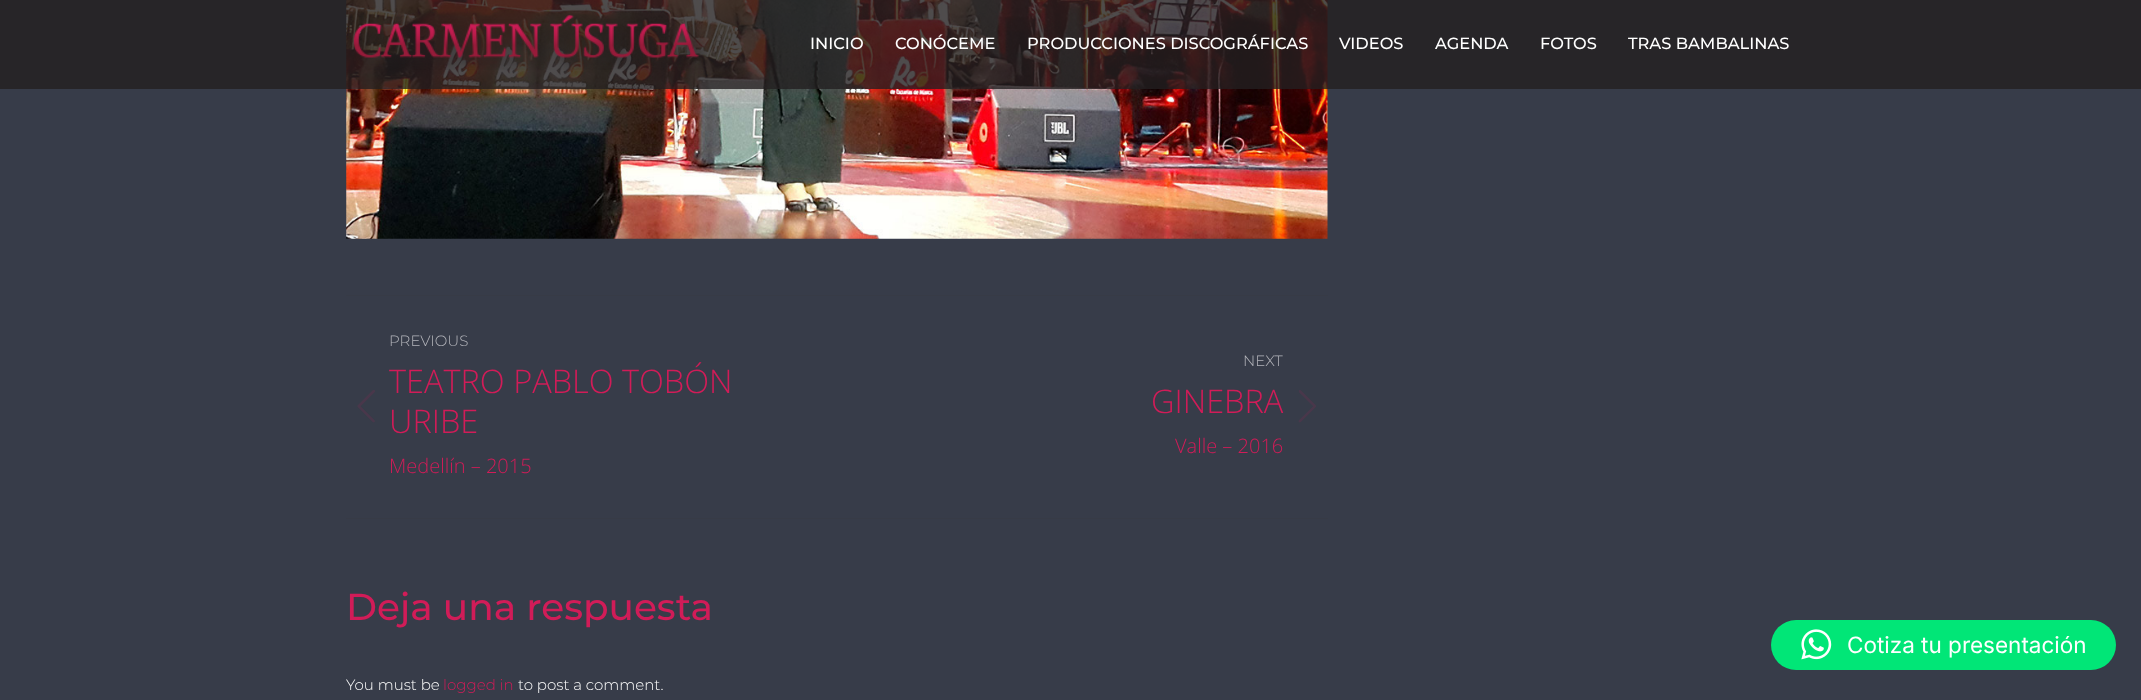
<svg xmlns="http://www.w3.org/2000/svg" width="2141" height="700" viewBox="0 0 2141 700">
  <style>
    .t1 { font: 500 16.25px Montserrat; fill: #fff; }
    .t2 { font: 300 15px Montserrat; fill: #b4b5bb; }
    .t3 { font: 300 32.5px Open Sans; fill: #d11c58; }
    .t4 { font: 300 20px Open Sans; fill: #d11c58; }
    .t5 { font: 500 37.5px Montserrat; fill: #d11c58; }
    .t6 { font: 300 15px Montserrat; fill: #fff; }
    .t7 { font: 300 15px Montserrat; fill: #d11c58; }
    .t8 { font: 22.5px Inter; fill: #fff; }
  </style>
  <rect width="100%" height="100%" fill="#373c49"/>
  <image x="346" y="0" width="982" height="239" href="images/2.png"/>
  <rect x="0" y="0" width="2141" height="89" fill="#231f20cc"/>
  <image x="353" y="14" width="354" height="56" href="images/1.png"/>
  <text x="810" y="49" class="t1">INICIO</text>
  <text x="895" y="49" class="t1">CONÓCEME</text>
  <text x="1027" y="49" class="t1">PRODUCCIONES DISCOGRÁFICAS</text>
  <text x="1339" y="49" class="t1">VIDEOS</text>
  <text x="1435" y="49" class="t1">AGENDA</text>
  <text x="1540" y="49" class="t1">FOTOS</text>
  <text x="1628" y="49" class="t1">TRAS BAMBALINAS</text>
  <rect x="346" y="295" width="982" height="1" fill="#373b46"/>
  <rect x="346" y="518" width="982" height="1" fill="#373b46"/>
  <text x="389" y="346" class="t2">PREVIOUS</text>
  <image x="357" y="390" width="18" height="33" href="images/3.png"/>
  <text x="389" y="393" class="t3">TEATRO PABLO TOBÓN</text>
  <text x="389" y="433" class="t3">URIBE</text>
  <text x="389" y="473" class="t4">Medellín – 2015</text>
  <text x="1243" y="366" class="t2">NEXT</text>
  <text x="1151" y="413" class="t3">GINEBRA</text>
  <text x="1175" y="453" class="t4">Valle – 2016</text>
  <image x="1298" y="390" width="18" height="33" href="images/4.png"/>
  <text x="346" y="620" class="t5">Deja una respuesta</text>
  <text x="346" y="690" class="t6">You must be</text>
  <text x="443" y="690" class="t7">logged in</text>
  <text x="518" y="690" class="t6">to post a comment.</text>
  <rect x="1771" y="620" width="345" height="50" rx="25" fill="#01e677"/>
  <image x="1801" y="629" width="31" height="31" href="images/5.png"/>
  <text x="1847" y="653" class="t8">Cotiza tu presentación</text>
</svg>
